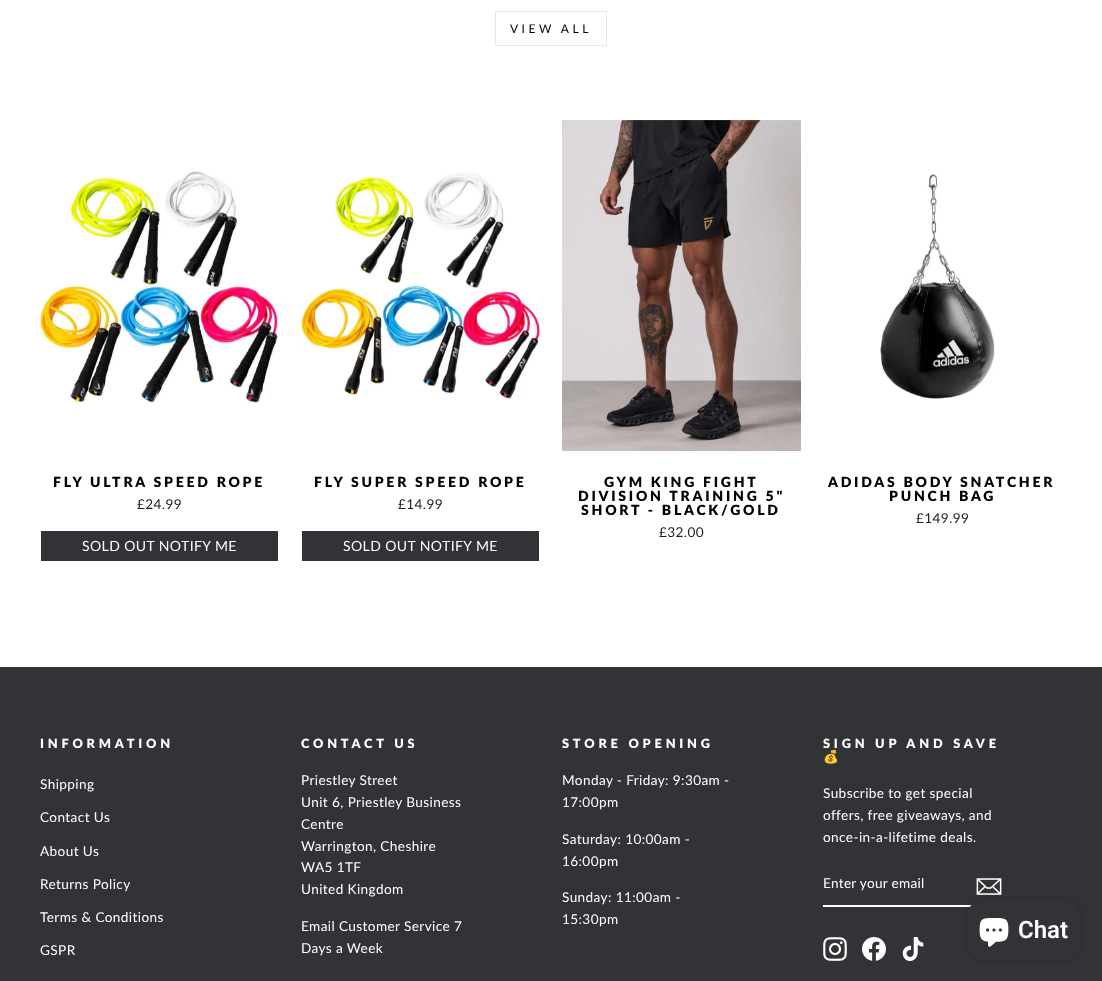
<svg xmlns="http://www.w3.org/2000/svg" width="1102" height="981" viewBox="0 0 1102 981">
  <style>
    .t1 { font: 12px Lato; letter-spacing: 3.5px; fill: #000; }
    .t2 { font: 800 14px Lato; letter-spacing: 2.75px; fill: #000; }
    .t3 { font: 13.6px Lato; letter-spacing: 0.4px; fill: #1c1d1d; }
    .t4 { font: 14px Lato; letter-spacing: 0.4px; fill: #fff; }
    .t5 { font: 800 12.75px Lato; letter-spacing: 3.8px; fill: #fff; }
    .t6 { font: 13.6px Lato; letter-spacing: 0.4px; fill: #fff; }
    .t7 { font: bold 12.75px Noto Color Emoji; letter-spacing: 3.8px; fill: #fff; }
    .t8 { font: 13.6px Lato; letter-spacing: 0.3px; fill: #fff; }
    .t9 { font: 600 24px Roboto; fill: #fff; }
  </style>
  <rect width="100%" height="100%" fill="#fff"/>
  <rect x="495.5" y="11.5" width="111" height="34" fill="none" stroke="#e8e8e1"/>
  <text x="510" y="33" class="t1">VIEW ALL</text>
  <image x="40" y="171" width="239" height="233" href="images/1.png"/>
  <text x="53" y="487" class="t2">FLY ULTRA SPEED ROPE</text>
  <text x="137" y="509" class="t3">£24.99</text>
  <rect x="41" y="531" width="237" height="30" fill="#323336"/>
  <text x="82" y="551" class="t4">SOLD OUT NOTIFY ME</text>
  <image x="301" y="172" width="239" height="228" href="images/2.png"/>
  <text x="314" y="487" class="t2">FLY SUPER SPEED ROPE</text>
  <text x="398" y="509" class="t3">£14.99</text>
  <rect x="302" y="531" width="237" height="30" fill="#323336"/>
  <text x="343" y="551" class="t4">SOLD OUT NOTIFY ME</text>
  <image x="562" y="120" width="239" height="332" href="images/3.png"/>
  <text x="604" y="487" class="t2">GYM KING FIGHT</text>
  <text x="578" y="501" class="t2">DIVISION TRAINING 5"</text>
  <text x="581" y="515" class="t2">SHORT - BLACK/GOLD</text>
  <text x="659" y="537" class="t3">£32.00</text>
  <image x="880" y="174" width="115" height="225" href="images/4.png"/>
  <text x="828" y="487" class="t2">ADIDAS BODY SNATCHER</text>
  <text x="889" y="501" class="t2">PUNCH BAG</text>
  <text x="916" y="523" class="t3">£149.99</text>
  <rect x="0" y="667" width="1102" height="314" fill="#323336"/>
  <text x="40" y="748" class="t5">INFORMATION</text>
  <text x="40" y="789" class="t6">Shipping</text>
  <text x="40" y="822" class="t6">Contact Us</text>
  <text x="40" y="856" class="t6">About Us</text>
  <text x="40" y="889" class="t6">Returns Policy</text>
  <text x="40" y="922" class="t6">Terms &amp; Conditions</text>
  <text x="40" y="955" class="t6">GSPR</text>
  <text x="301" y="748" class="t5">CONTACT US</text>
  <text x="301" y="785" class="t6">Priestley Street</text>
  <text x="301" y="807" class="t6">Unit 6, Priestley Business</text>
  <text x="301" y="829" class="t6">Centre</text>
  <text x="301" y="851" class="t6">Warrington, Cheshire</text>
  <text x="301" y="872" class="t6">WA5 1TF</text>
  <text x="301" y="894" class="t6">United Kingdom</text>
  <text x="301" y="931" class="t6">Email Customer Service 7</text>
  <text x="301" y="953" class="t6">Days a Week</text>
  <text x="562" y="748" class="t5">STORE OPENING</text>
  <text x="562" y="785" class="t6">Monday - Friday: 9:30am -</text>
  <text x="562" y="807" class="t6">17:00pm</text>
  <text x="562" y="844" class="t6">Saturday: 10:00am -</text>
  <text x="562" y="866" class="t6">16:00pm</text>
  <text x="562" y="902" class="t6">Sunday: 11:00am -</text>
  <text x="562" y="924" class="t6">15:30pm</text>
  <text x="823" y="748" class="t5">SIGN UP AND SAVE</text>
  <text x="823" y="761" class="t7">💰</text>
  <text x="823" y="798" class="t6">Subscribe to get special</text>
  <text x="823" y="820" class="t6">offers, free giveaways, and</text>
  <text x="823" y="842" class="t6">once-in-a-lifetime deals.</text>
  <rect x="823" y="905" width="149" height="2" fill="#fff"/>
  <text x="823" y="888" class="t8">Enter your email</text>
  <image x="976" y="878" width="26" height="17" href="images/5.png"/>
  <image x="823" y="937" width="24" height="24" href="images/6.png"/>
  <image x="862" y="937" width="24" height="24" href="images/7.png"/>
  <image x="902" y="937" width="22" height="24" href="images/8.png"/>
  <rect x="967" y="900" width="113" height="60" rx="16" fill="#00000026" filter="blur(2.5px)"/>
  <rect x="967" y="900" width="113" height="60" rx="16" fill="#323336"/>
  <image x="979" y="918" width="30" height="29" href="images/9.png"/>
  <text x="1018" y="938" class="t9">Chat</text>
</svg>
